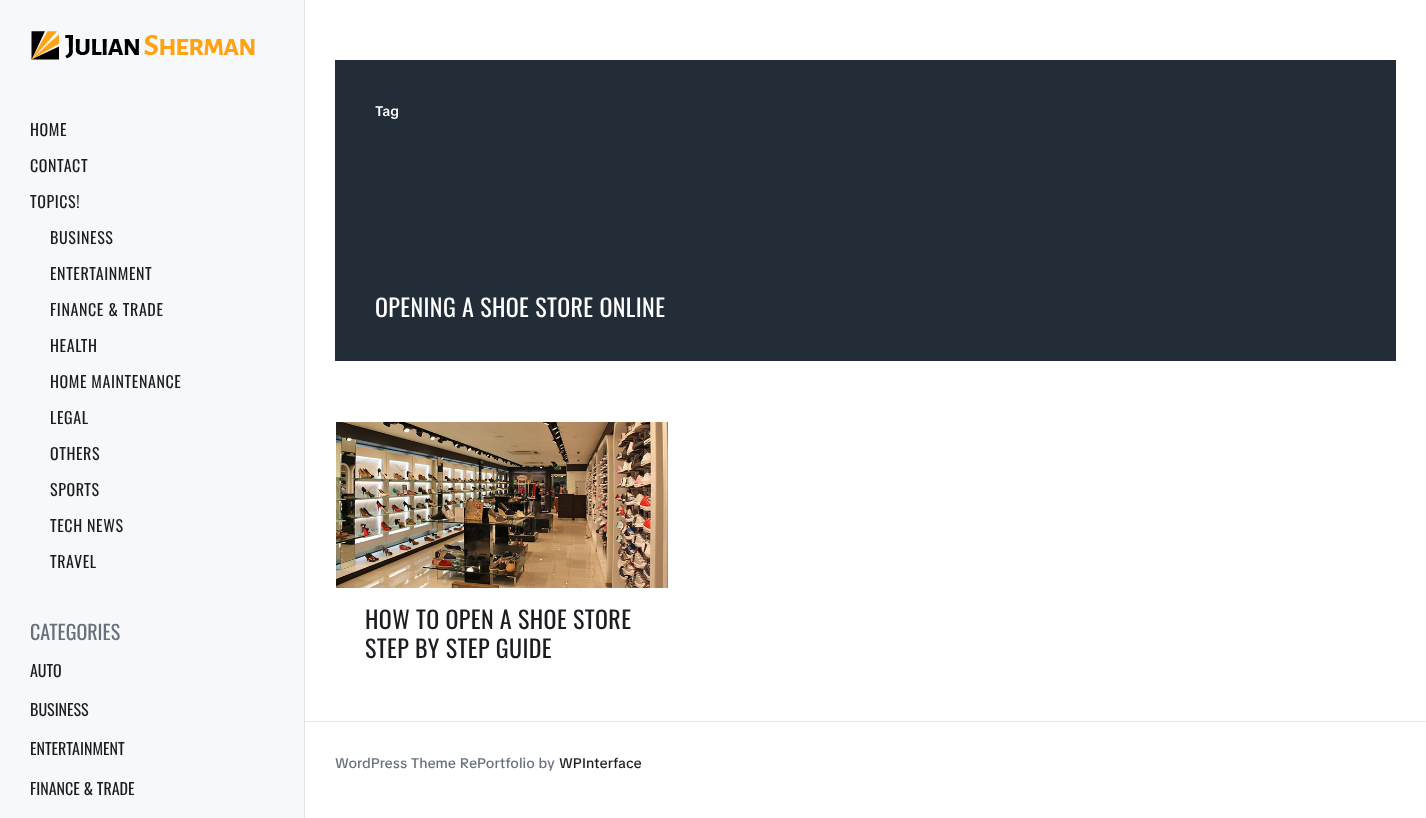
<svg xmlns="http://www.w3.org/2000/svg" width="1426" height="818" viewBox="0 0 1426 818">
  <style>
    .t1 { font: 16px Oswald; letter-spacing: 0.6px; fill: #1c1d20; }
    .t2 { font: 20px Oswald; fill: #68717b; }
    .t3 { font: 16px Oswald; fill: #1c1d20; }
    .t4 { font: 600 14px TikTok Sans; fill: #fff; }
    .t5 { font: 24px Oswald; letter-spacing: 0.4px; fill: #fff; }
    .t6 { font: 24px Oswald; letter-spacing: 0.4px; fill: #1c1d20; }
    .t7 { font: 500 14px TikTok Sans; fill: #68717b; }
    .t8 { font: 500 14px TikTok Sans; fill: #1c1d20; }
  </style>
  <rect width="100%" height="100%" fill="#fff"/>
  <rect x="0" y="0" width="304" height="818" fill="#f6f8f9"/>
  <rect x="304" y="0" width="1" height="818" fill="#e0e4e7"/>
  <image x="31" y="31" width="224" height="29" href="images/1.png"/>
  <text x="30" y="136" class="t1">HOME</text>
  <text x="30" y="172" class="t1">CONTACT</text>
  <text x="30" y="208" class="t1">TOPICS!</text>
  <text x="50" y="244" class="t1">BUSINESS</text>
  <text x="50" y="280" class="t1">ENTERTAINMENT</text>
  <text x="50" y="316" class="t1">FINANCE &amp; TRADE</text>
  <text x="50" y="352" class="t1">HEALTH</text>
  <text x="50" y="388" class="t1">HOME MAINTENANCE</text>
  <text x="50" y="424" class="t1">LEGAL</text>
  <text x="50" y="460" class="t1">OTHERS</text>
  <text x="50" y="496" class="t1">SPORTS</text>
  <text x="50" y="532" class="t1">TECH NEWS</text>
  <text x="50" y="568" class="t1">TRAVEL</text>
  <text x="30" y="640" class="t2">CATEGORIES</text>
  <text x="30" y="677" class="t3">AUTO</text>
  <text x="30" y="716" class="t3">BUSINESS</text>
  <text x="30" y="755" class="t3">ENTERTAINMENT</text>
  <text x="30" y="795" class="t3">FINANCE &amp; TRADE</text>
  <rect x="335" y="60" width="1061" height="301" fill="#232d37"/>
  <text x="375" y="116" class="t4">Tag</text>
  <text x="375" y="317" class="t5">OPENING A SHOE STORE ONLINE</text>
  <image x="336" y="422" width="332" height="166" href="images/2.png"/>
  <text x="365" y="629" class="t6">HOW TO OPEN A SHOE STORE</text>
  <text x="365" y="658" class="t6">STEP BY STEP GUIDE</text>
  <rect x="305" y="721" width="1121" height="1" fill="#e0e4e7"/>
  <text x="335" y="768" class="t7">WordPress Theme RePortfolio by</text>
  <text x="559" y="768" class="t8">WPInterface</text>
</svg>
